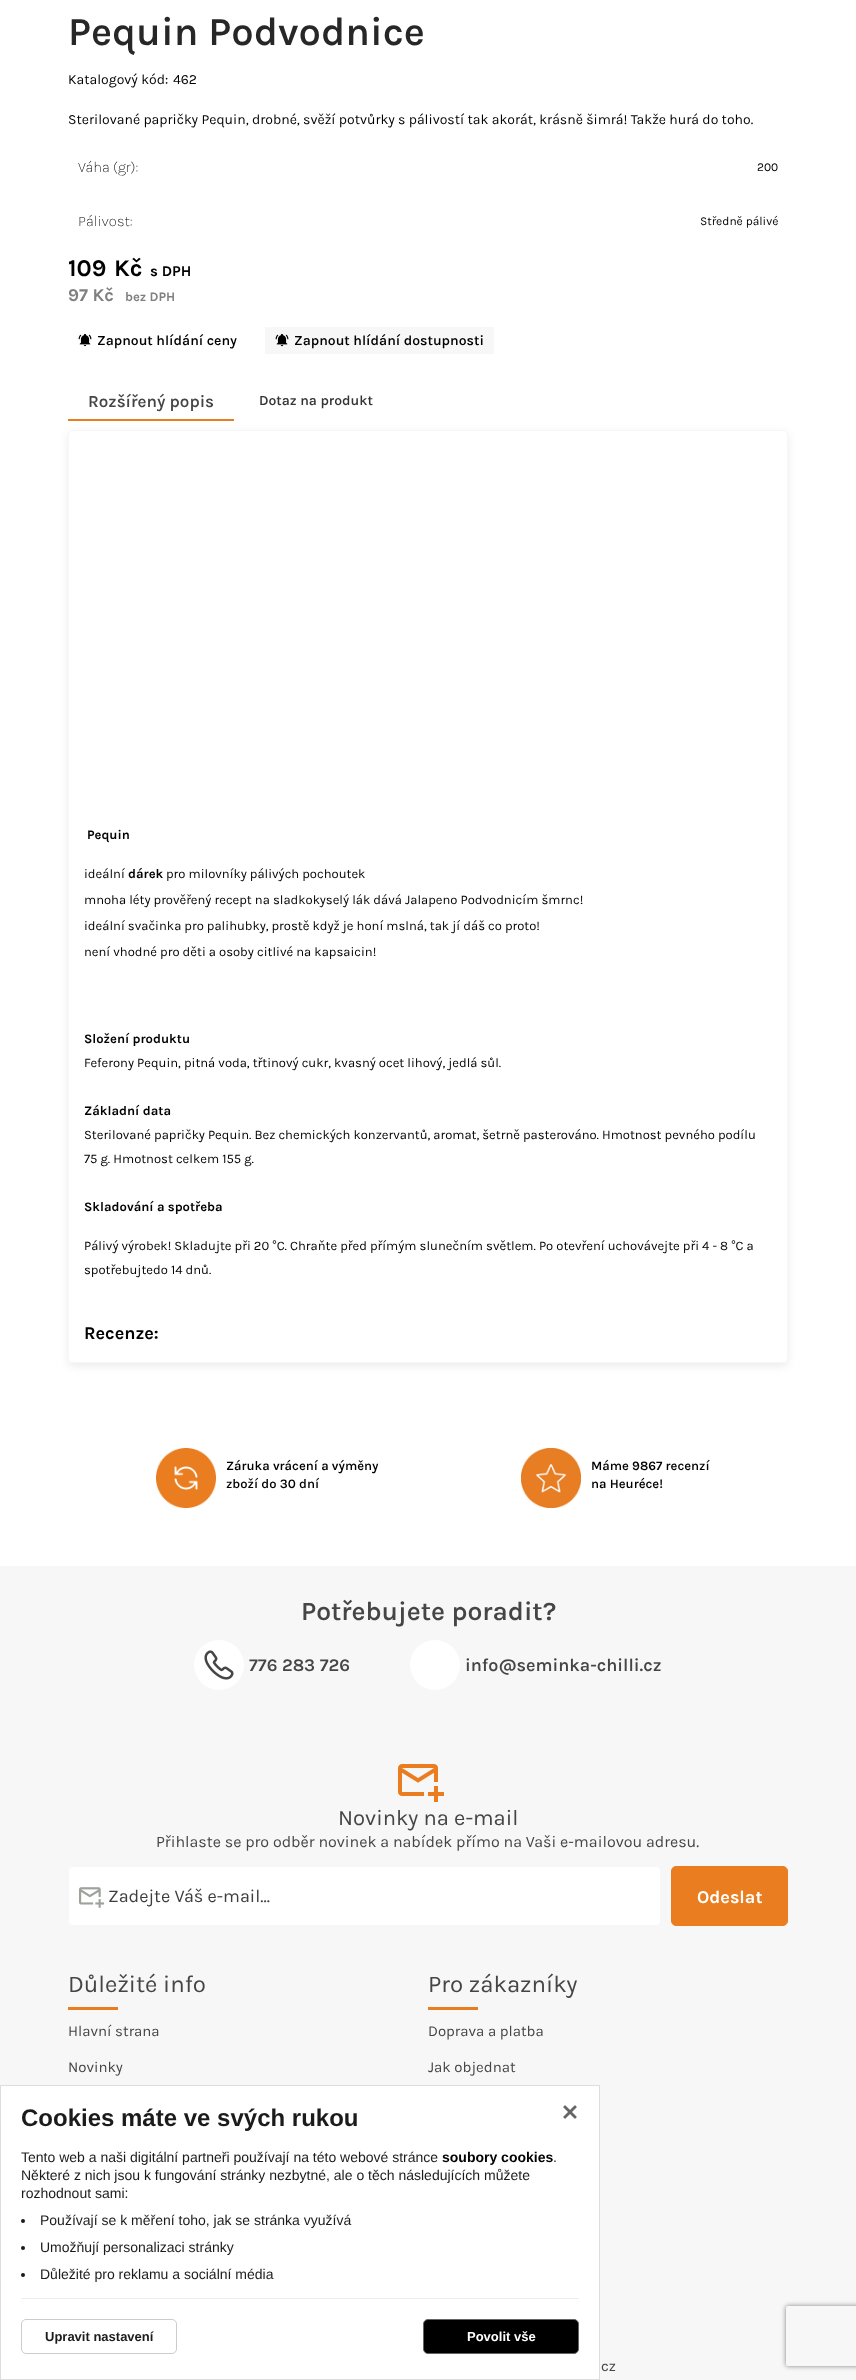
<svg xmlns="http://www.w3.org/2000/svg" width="856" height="2380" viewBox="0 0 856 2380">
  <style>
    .t1 { font: 600 40px Karla; fill: #272727; }
    .t2 { font: 14px Karla; fill: #000; }
    .t3 { font: 200 15px Karla; fill: #000; }
    .t4 { font: 12px Karla; fill: #000; }
    .t5 { font: bold 24px Karla; fill: #000; }
    .t6 { font: bold 15px Karla; fill: #000; }
    .t7 { font: bold 18px Karla; fill: #808080; }
    .t8 { font: bold 13px Karla; fill: #808080; }
    .t9 { font: 600 14px Karla; fill: #000; }
    .t10 { font: 600 17px Karla; fill: #454545; }
    .t11 { font: 600 14px Karla; fill: #333; }
    .t12 { font: bold 13px Karla; fill: #000; }
    .t13 { font: 13px Karla; fill: #000; }
    .t14 { font: bold 18px Karla; fill: #000; }
    .t15 { font: 600 13px Karla; fill: #000; }
    .t16 { font: 600 26.5px Karla; fill: #454545; }
    .t17 { font: 600 18px Karla; fill: #454545; }
    .t18 { font: 22px Karla; fill: #454545; }
    .t19 { font: 16px Karla; fill: #454545; }
    .t20 { font: 18px Karla; fill: #3d3d3d; }
    .t21 { font: bold 18px Karla; fill: #fff; }
    .t22 { font: 24px Karla; fill: #454545; }
    .t23 { font: 15px Karla; fill: #454545; }
    .t24 { font: bold 24px Liberation Sans; fill: #1c1b1b; }
    .t25 { font: 14px Liberation Sans; fill: #1c1b1b; }
    .t26 { font: bold 14px Liberation Sans; fill: #000; }
    .t27 { font: bold 13px Liberation Sans; fill: #1c1b1b; }
    .t28 { font: bold 13px Liberation Sans; fill: #fff; }
  </style>
  <defs>
    <clipPath id="clip1"><path d="M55 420H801V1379H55ZM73 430H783C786 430 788 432 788 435V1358C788 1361 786 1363 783 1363H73C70 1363 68 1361 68 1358V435C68 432 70 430 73 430Z" clip-rule="evenodd"/></clipPath>
    <clipPath id="clip2"><path d="M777 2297H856V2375H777ZM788 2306H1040C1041 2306 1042 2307 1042 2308V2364C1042 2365 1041 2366 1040 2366H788C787 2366 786 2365 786 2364V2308C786 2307 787 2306 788 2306Z" clip-rule="evenodd"/></clipPath>
  </defs>
  <rect width="100%" height="100%" fill="#fff"/>
  <text x="68" y="45" class="t1">Pequin Podvodnice</text>
  <text x="68" y="84" class="t2">Katalogový kód:</text>
  <text x="173" y="84" class="t2">462</text>
  <text x="68" y="124" class="t2">Sterilované papričky Pequin, drobné, svěží potvůrky s pálivostí tak akorát, krásně šimrá! Takže hurá do toho.</text>
  <text x="78" y="172" class="t3">Váha (gr):</text>
  <text x="757" y="171" class="t4">200</text>
  <text x="78" y="226" class="t3">Pálivost:</text>
  <text x="700" y="225" class="t4">Středně pálivé</text>
  <text x="68" y="276" class="t5">109</text>
  <text x="114" y="276" class="t5">Kč</text>
  <text x="150" y="276" class="t6">s DPH</text>
  <text x="68" y="301" class="t7">97 Kč</text>
  <text x="125" y="301" class="t8">bez DPH</text>
  <image x="78" y="334" width="14" height="13" href="images/1.png"/>
  <text x="97" y="345" class="t9">Zapnout hlídání ceny</text>
  <rect x="265" y="327" width="229" height="27" fill="#f7f7f8"/>
  <image x="275" y="334" width="14" height="13" href="images/2.png"/>
  <text x="294" y="345" class="t9">Zapnout hlídání dostupnosti</text>
  <g clip-path="url(#clip1)">
    <rect x="68" y="433" width="720" height="933" rx="5" fill="#00000014" filter="blur(4px)"/>
  </g>
  <rect x="68" y="419" width="166" height="2" fill="#e97d20"/>
  <text x="88" y="407" class="t10">Rozšířený popis</text>
  <text x="259" y="405" class="t11">Dotaz na produkt</text>
  <rect x="68.5" y="430.5" width="719" height="932" rx="4.5" fill="none" stroke="#f5f8f9"/>
  <text x="87" y="839" class="t12">Pequin</text>
  <text x="84" y="878" class="t13">ideální</text>
  <text x="128" y="878" class="t12">dárek</text>
  <text x="166" y="878" class="t13">pro milovníky pálivých pochoutek</text>
  <text x="84" y="904" class="t13">mnoha léty prověřený recept na sladkokyselý lák dává Jalapeno Podvodnicím šmrnc!</text>
  <text x="84" y="930" class="t13">ideální svačinka pro palihubky, prostě když je honí mslná, tak jí dáš co proto!</text>
  <text x="84" y="956" class="t13">není vhodné pro děti a osoby citlivé na kapsaicin!</text>
  <text x="84" y="1043" class="t12">Složení produktu</text>
  <text x="84" y="1067" class="t13">Feferony Pequin, pitná voda, třtinový cukr, kvasný ocet lihový, jedlá sůl.</text>
  <text x="84" y="1115" class="t12">Základní data</text>
  <text x="84" y="1139" class="t13">Sterilované papričky Pequin. Bez chemických konzervantů, aromat, šetrně pasterováno. Hmotnost pevného podílu</text>
  <text x="84" y="1163" class="t13">75 g. Hmotnost celkem 155 g.</text>
  <text x="84" y="1211" class="t12">Skladování a spotřeba</text>
  <text x="84" y="1250" class="t13">Pálivý výrobek! Skladujte při 20 °C. Chraňte před přímým slunečním světlem. Po otevření uchovávejte při 4 - 8 °C a</text>
  <text x="84" y="1274" class="t13">spotřebujtedo 14 dnů.</text>
  <text x="84" y="1339" class="t14">Recenze:</text>
  <image x="156" y="1448" width="60" height="60" href="images/3.png"/>
  <text x="226" y="1470" class="t15">Záruka vrácení a výměny</text>
  <text x="226" y="1488" class="t15">zboží do 30 dní</text>
  <image x="521" y="1448" width="60" height="60" href="images/4.png"/>
  <text x="591" y="1470" class="t15">Máme 9867 recenzí</text>
  <text x="591" y="1488" class="t15">na Heuréce!</text>
  <rect x="0" y="1566" width="856" height="814" fill="#f7f7f8"/>
  <text x="301" y="1620" class="t16">Potřebujete poradit?</text>
  <circle cx="219" cy="1665" r="25" fill="#fff"/>
  <image x="204" y="1650" width="30" height="30" href="images/5.png"/>
  <text x="249" y="1671" class="t17">776 283 726</text>
  <circle cx="435" cy="1665" r="25" fill="#fff"/>
  <text x="465" y="1671" class="t17">info@seminka-chilli.cz</text>
  <image x="397" y="1764" width="47" height="38" href="images/6.png"/>
  <text x="338" y="1825" class="t18">Novinky na e-mail</text>
  <text x="156" y="1847" class="t19">Přihlaste se pro odběr novinek a nabídek přímo na Vaši e-mailovou adresu.</text>
  <rect x="68" y="1866" width="593" height="60" rx="5" fill="#fff"/>
  <image x="79" y="1887" width="25" height="21" href="images/7.png"/>
  <rect x="68.5" y="1866.5" width="592" height="59" rx="4.5" fill="none" stroke="#f7f7f8"/>
  <text x="108" y="1902" class="t20">Zadejte Váš e-mail...</text>
  <rect x="671.5" y="1866.5" width="116" height="59" rx="4.5" fill="#e97d20" stroke="#e97d20"/>
  <text x="697" y="1903" class="t21">Odeslat</text>
  <text x="68" y="1992" class="t22">Důležité info</text>
  <rect x="68" y="2007" width="50" height="3" fill="#e97d20"/>
  <text x="68" y="2036" class="t23">Hlavní strana</text>
  <text x="68" y="2072" class="t23">Novinky</text>
  <text x="428" y="1992" class="t22">Pro zákazníky</text>
  <rect x="428" y="2007" width="50" height="3" fill="#e97d20"/>
  <text x="428" y="2036" class="t23">Doprava a platba</text>
  <text x="428" y="2072" class="t23">Jak objednat</text>
  <text x="601" y="2371" class="t23">cz</text>
  <rect x="0.5" y="2085.5" width="599" height="294" fill="#fff" stroke="#ddd"/>
  <text x="21" y="2126" class="t24">Cookies máte ve svých rukou</text>
  <text x="21" y="2162" class="t25">Tento web a naši digitální partneři používají na této webové stránce</text>
  <text x="442" y="2162" class="t26">soubory cookies</text>
  <text x="553" y="2162" class="t25">.</text>
  <text x="21" y="2180" class="t25">Některé z nich jsou k fungování stránky nezbytné, ale o těch následujících můžete</text>
  <text x="21" y="2198" class="t25">rozhodnout sami:</text>
  <circle cx="23" cy="2221" r="2" fill="#1c1b1b"/>
  <text x="40" y="2225" class="t25">Používají se k měření toho, jak se stránka využívá</text>
  <circle cx="23" cy="2248" r="2" fill="#1c1b1b"/>
  <text x="40" y="2252" class="t25">Umožňují personalizaci stránky</text>
  <circle cx="23" cy="2275" r="2" fill="#1c1b1b"/>
  <text x="40" y="2279" class="t25">Důležité pro reklamu a sociální média</text>
  <image x="563" y="2105" width="14" height="14" href="images/8.png"/>
  <rect x="21" y="2298" width="558" height="1" fill="#ededed"/>
  <rect x="21.5" y="2319.5" width="155" height="34" rx="4.5" fill="none" stroke="#ccc"/>
  <text x="45" y="2341" class="t27">Upravit nastavení</text>
  <rect x="423.5" y="2319.5" width="155" height="34" rx="4.5" fill="#000" stroke="#656565"/>
  <text x="467" y="2341" class="t28">Povolit vše</text>
  <g clip-path="url(#clip2)">
    <rect x="786" y="2306" width="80" height="60" rx="2" fill="#808080" filter="blur(2.5px)"/>
  </g>
</svg>
